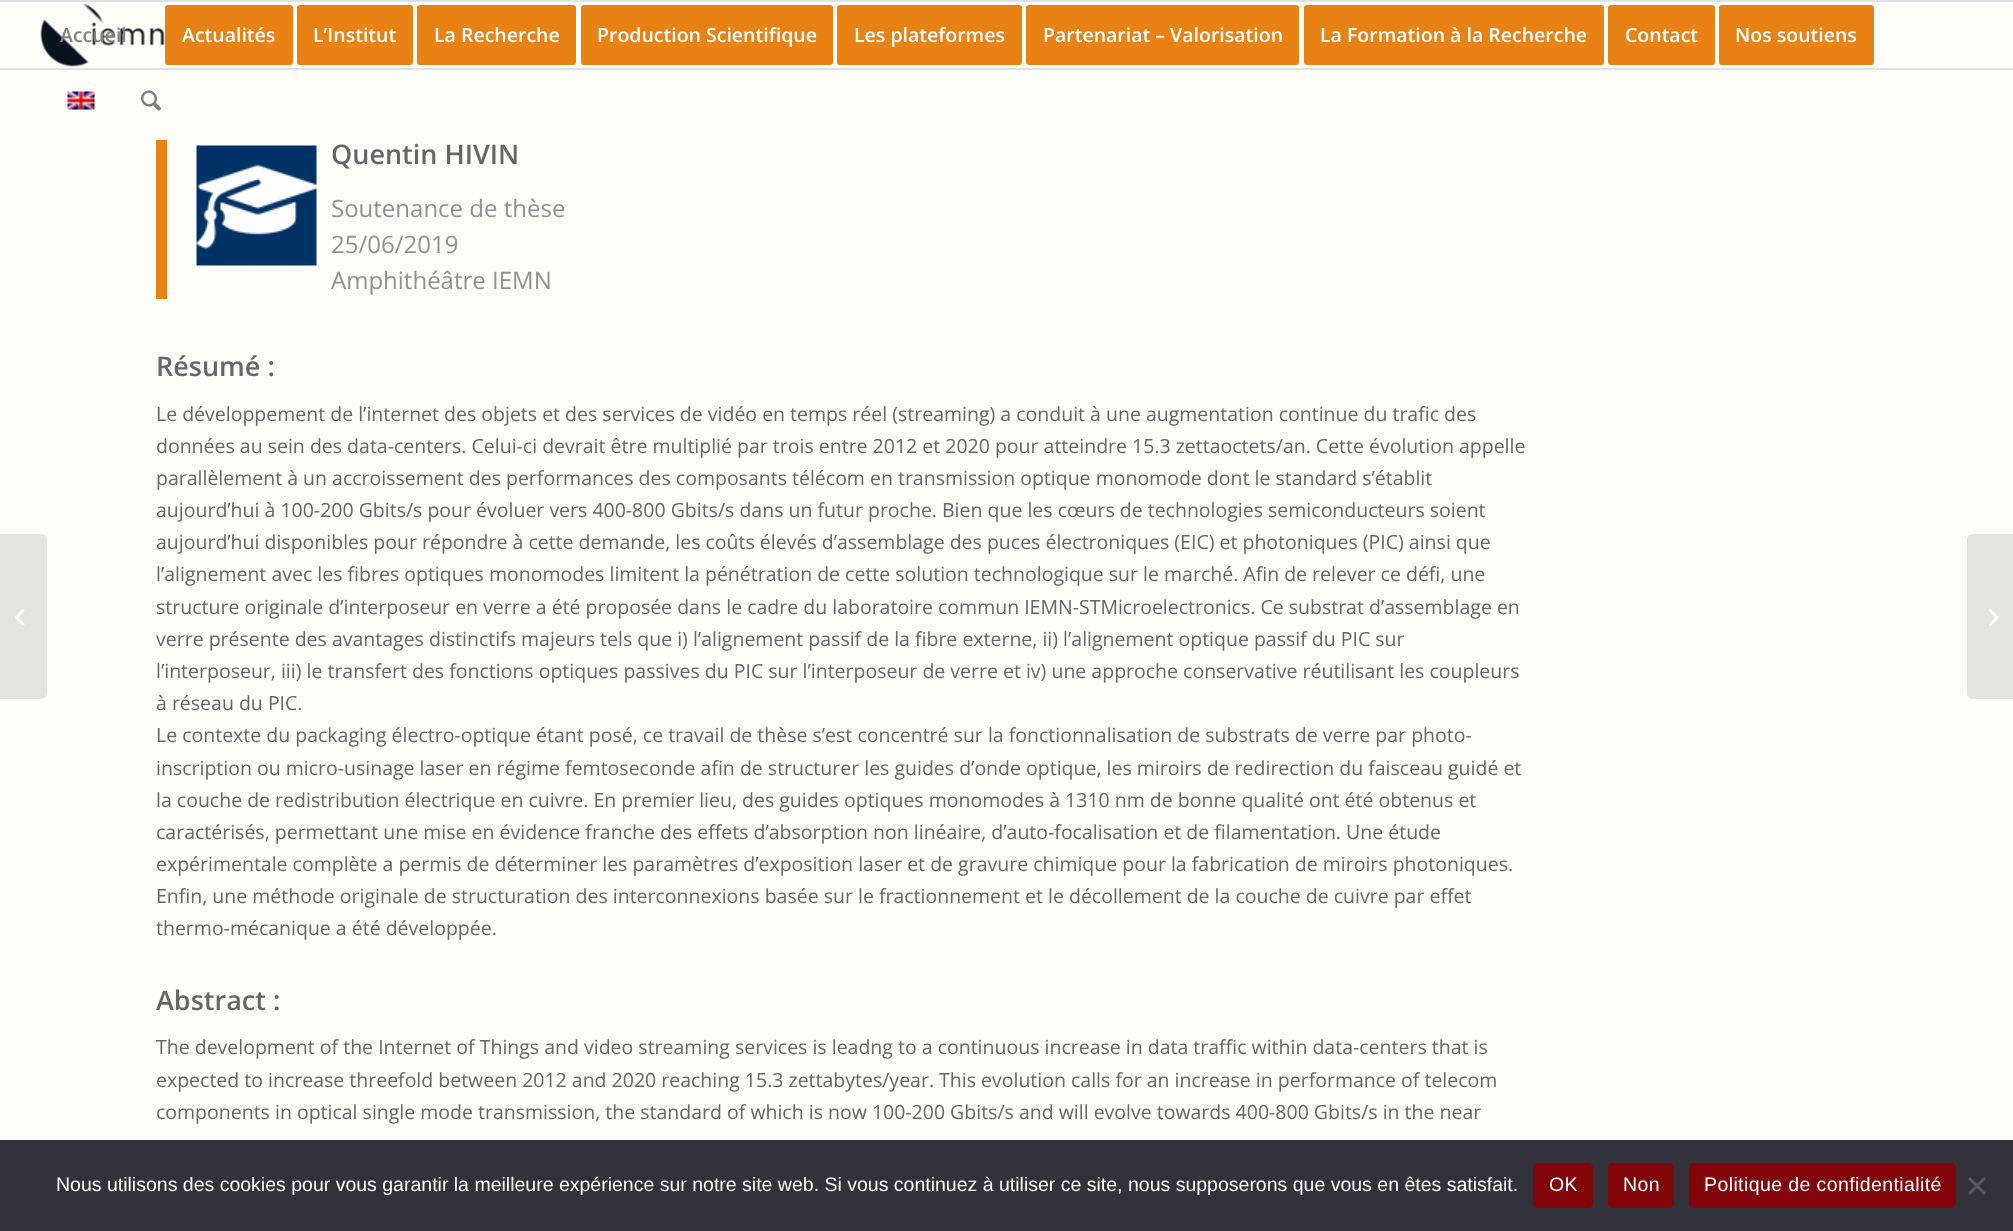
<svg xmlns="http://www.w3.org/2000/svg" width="2013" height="1231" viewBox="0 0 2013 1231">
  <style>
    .t1 { font: 600 19.5px Open Sans; fill: #808080; }
    .t2 { font: 600 19.5px Open Sans; fill: #fff; }
    .t3 { font: 600 27px Open Sans; fill: #666; }
    .t4 { font: 24px Open Sans; fill: #919191; }
    .t5 { font: 19.5px Open Sans; fill: #666; }
    .t6 { font: 19.5px Liberation Sans; fill: #fff; }
    .t7 { font: 19.5px Liberation Sans; letter-spacing: 0.4px; fill: #fff; }
  </style>
  <rect width="100%" height="100%" fill="#fefef9"/>
  <rect x="0" y="0" width="2013" height="2" fill="#e1e1e1"/>
  <rect x="0" y="68" width="2013" height="2" fill="#e1e1e1"/>
  <image x="40" y="3" width="125" height="64" href="images/1.png"/>
  <text x="60" y="42" class="t1">Accueil</text>
  <rect x="166.5" y="6.5" width="125" height="57" rx="1.5" fill="#e88215" stroke="#e88215" stroke-width="3"/>
  <text x="182" y="42" class="t2">Actualités</text>
  <rect x="298.5" y="6.5" width="113" height="57" rx="1.5" fill="#e88215" stroke="#e88215" stroke-width="3"/>
  <text x="313" y="42" class="t2">L’Institut</text>
  <rect x="418.5" y="6.5" width="156" height="57" rx="1.5" fill="#e88215" stroke="#e88215" stroke-width="3"/>
  <text x="434" y="42" class="t2">La Recherche</text>
  <rect x="582.5" y="6.5" width="249" height="57" rx="1.5" fill="#e88215" stroke="#e88215" stroke-width="3"/>
  <text x="597" y="42" class="t2">Production Scientifique</text>
  <rect x="838.5" y="6.5" width="182" height="57" rx="1.5" fill="#e88215" stroke="#e88215" stroke-width="3"/>
  <text x="854" y="42" class="t2">Les plateformes</text>
  <rect x="1027.5" y="6.5" width="270" height="57" rx="1.5" fill="#e88215" stroke="#e88215" stroke-width="3"/>
  <text x="1043" y="42" class="t2">Partenariat – Valorisation</text>
  <rect x="1305.5" y="6.5" width="297" height="57" rx="1.5" fill="#e88215" stroke="#e88215" stroke-width="3"/>
  <text x="1320" y="42" class="t2">La Formation à la Recherche</text>
  <rect x="1609.5" y="6.5" width="104" height="57" rx="1.5" fill="#e88215" stroke="#e88215" stroke-width="3"/>
  <text x="1625" y="42" class="t2">Contact</text>
  <rect x="1720.5" y="6.5" width="152" height="57" rx="1.5" fill="#e88215" stroke="#e88215" stroke-width="3"/>
  <text x="1735" y="42" class="t2">Nos soutiens</text>
  <image x="67" y="91" width="28" height="19" href="images/2.png"/>
  <image x="141" y="90" width="21" height="21" href="images/3.png"/>
  <path d="M0 534H41C44.5 534 47 536.5 47 540V693C47 696.5 44.5 699 41 699H0Z" fill="#e5e5e0"/>
  <image x="15" y="609" width="10" height="17" href="images/4.png"/>
  <rect x="156" y="140" width="11" height="159" fill="#e88215"/>
  <image x="196" y="145" width="121" height="121" href="images/5.png"/>
  <text x="331" y="164" class="t3">Quentin HIVIN</text>
  <text x="331" y="217" class="t4">Soutenance de thèse</text>
  <text x="331" y="253" class="t4">25/06/2019</text>
  <text x="331" y="289" class="t4">Amphithéâtre IEMN</text>
  <text x="156" y="376" class="t3">Résumé :</text>
  <text x="156" y="421" class="t5">Le développement de l’internet des objets et des services de vidéo en temps réel (streaming) a conduit à une augmentation continue du trafic des</text>
  <text x="156" y="453" class="t5">données au sein des data-centers. Celui-ci devrait être multiplié par trois entre 2012 et 2020 pour atteindre 15.3 zettaoctets/an. Cette évolution appelle</text>
  <text x="156" y="485" class="t5">parallèlement à un accroissement des performances des composants télécom en transmission optique monomode dont le standard s’établit</text>
  <text x="156" y="517" class="t5">aujourd’hui à 100-200 Gbits/s pour évoluer vers 400-800 Gbits/s dans un futur proche. Bien que les cœurs de technologies semiconducteurs soient</text>
  <text x="156" y="549" class="t5">aujourd’hui disponibles pour répondre à cette demande, les coûts élevés d’assemblage des puces électroniques (EIC) et photoniques (PIC) ainsi que</text>
  <text x="156" y="581" class="t5">l’alignement avec les fibres optiques monomodes limitent la pénétration de cette solution technologique sur le marché. Afin de relever ce défi, une</text>
  <text x="156" y="614" class="t5">structure originale d’interposeur en verre a été proposée dans le cadre du laboratoire commun IEMN-STMicroelectronics. Ce substrat d’assemblage en</text>
  <text x="156" y="646" class="t5">verre présente des avantages distinctifs majeurs tels que i) l’alignement passif de la fibre externe, ii) l’alignement optique passif du PIC sur</text>
  <text x="156" y="678" class="t5">l’interposeur, iii) le transfert des fonctions optiques passives du PIC sur l’interposeur de verre et iv) une approche conservative réutilisant les coupleurs</text>
  <text x="156" y="710" class="t5">à réseau du PIC.</text>
  <text x="156" y="742" class="t5">Le contexte du packaging électro-optique étant posé, ce travail de thèse s’est concentré sur la fonctionnalisation de substrats de verre par photo-</text>
  <text x="156" y="775" class="t5">inscription ou micro-usinage laser en régime femtoseconde afin de structurer les guides d’onde optique, les miroirs de redirection du faisceau guidé et</text>
  <text x="156" y="807" class="t5">la couche de redistribution électrique en cuivre. En premier lieu, des guides optiques monomodes à 1310 nm de bonne qualité ont été obtenus et</text>
  <text x="156" y="839" class="t5">caractérisés, permettant une mise en évidence franche des effets d’absorption non linéaire, d’auto-focalisation et de filamentation. Une étude</text>
  <text x="156" y="871" class="t5">expérimentale complète a permis de déterminer les paramètres d’exposition laser et de gravure chimique pour la fabrication de miroirs photoniques.</text>
  <text x="156" y="903" class="t5">Enfin, une méthode originale de structuration des interconnexions basée sur le fractionnement et le décollement de la couche de cuivre par effet</text>
  <text x="156" y="935" class="t5">thermo-mécanique a été développée.</text>
  <text x="156" y="1010" class="t3">Abstract :</text>
  <text x="156" y="1054" class="t5">The development of the Internet of Things and video streaming services is leadng to a continuous increase in data traffic within data-centers that is</text>
  <text x="156" y="1087" class="t5">expected to increase threefold between 2012 and 2020 reaching 15.3 zettabytes/year. This evolution calls for an increase in performance of telecom</text>
  <text x="156" y="1119" class="t5">components in optical single mode transmission, the standard of which is now 100-200 Gbits/s and will evolve towards 400-800 Gbits/s in the near</text>
  <path d="M1973 534H2013V699H1973C1969.5 699 1967 696.5 1967 693V540C1967 536.5 1969.5 534 1973 534Z" fill="#e5e5e0"/>
  <image x="1989" y="609" width="10" height="17" href="images/6.png"/>
  <rect x="0" y="1140" width="2013" height="91" fill="#32323a"/>
  <text x="56" y="1191" class="t6">Nous utilisons des cookies pour vous garantir la meilleure expérience sur notre site web. Si vous continuez à utiliser ce site, nous supposerons que vous en êtes satisfait.</text>
  <rect x="1533" y="1163" width="60" height="45" rx="5" fill="#810509"/>
  <text x="1549" y="1191" class="t7">OK</text>
  <rect x="1608" y="1163" width="66" height="45" rx="5" fill="#810509"/>
  <text x="1623" y="1191" class="t7">Non</text>
  <rect x="1689" y="1163" width="267" height="45" rx="5" fill="#810509"/>
  <text x="1704" y="1191" class="t7">Politique de confidentialité</text>
  <path d="M1984 1177L1986 1179L1970 1195L1968 1193Z" fill="#59595d"/>
  <path d="M1968 1179L1970 1177L1986 1193L1984 1195Z" fill="#59595d"/>
</svg>
